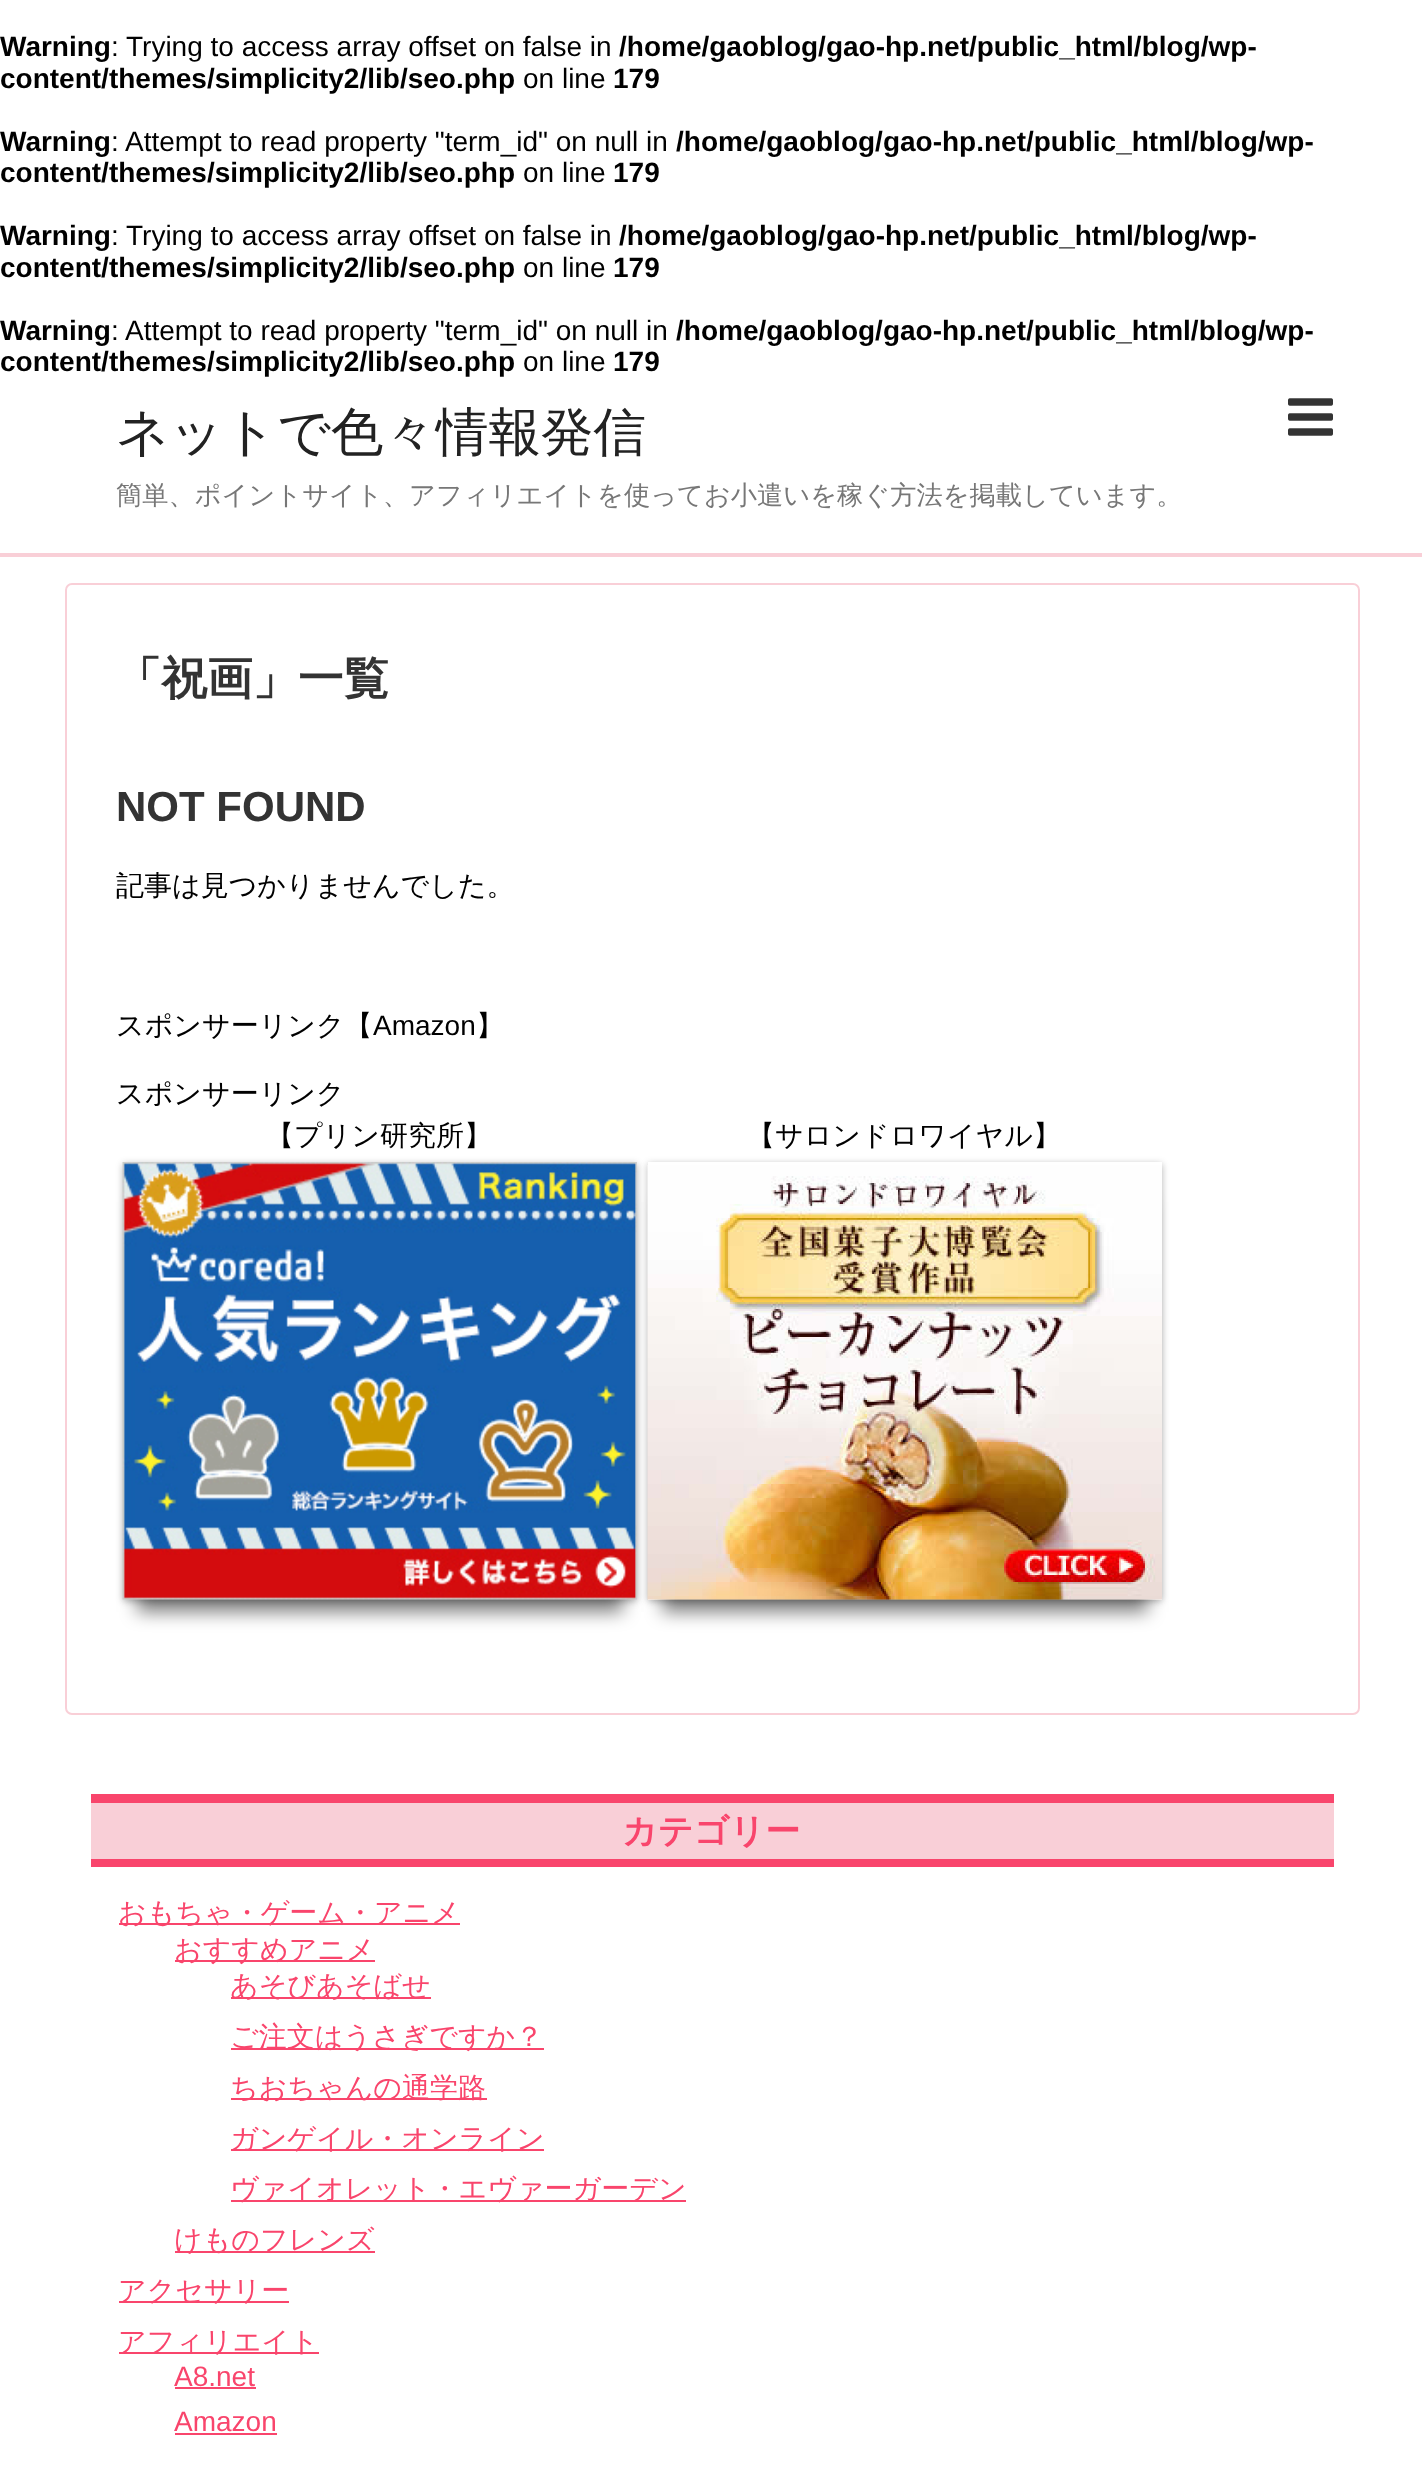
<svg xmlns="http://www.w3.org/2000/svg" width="1422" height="2478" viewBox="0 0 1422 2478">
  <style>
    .t1 { font: bold 28px Liberation Sans; fill: #000; }
    .t2 { font: 28px Liberation Sans; fill: #000; }
    .t3 { font: 500 52.5px WenQuanYi Zen Hei; fill: #222; }
    .t4 { font: 500 26.25px WenQuanYi Zen Hei; fill: #777; }
    .t5 { font: bold 45.5px WenQuanYi Zen Hei; fill: #333; }
    .t6 { font: bold 42px Liberation Sans; fill: #333; }
    .t7 { font: 500 28px WenQuanYi Zen Hei; fill: #000; }
    .t8 { font: bold 35px WenQuanYi Zen Hei; fill: #f9456c; }
    .t9 { font: 500 28px WenQuanYi Zen Hei; fill: #f9456c; }
    .t10 { font: 28px Liberation Sans; fill: #f9456c; }
  </style>
  <defs>
    <clipPath id="clip1"><path d="M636 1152H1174V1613H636ZM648 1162H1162V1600H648Z" clip-rule="evenodd"/></clipPath>
  </defs>
  <rect width="100%" height="100%" fill="#fff"/>
  <text x="0" y="56" class="t1">Warning</text>
  <text x="111" y="56" class="t2">:</text>
  <text x="126" y="56" class="t2">Trying to access array offset on false in</text>
  <text x="619" y="56" class="t1">/home/gaoblog/gao-hp.net/public_html/blog/wp-</text>
  <text x="0" y="88" class="t1">content/themes/simplicity2/lib/seo.php</text>
  <text x="523" y="88" class="t2">on line</text>
  <text x="613" y="88" class="t1">179</text>
  <text x="0" y="151" class="t1">Warning</text>
  <text x="111" y="151" class="t2">:</text>
  <text x="125" y="151" class="t2">Attempt to read property "term_id" on null in</text>
  <text x="676" y="151" class="t1">/home/gaoblog/gao-hp.net/public_html/blog/wp-</text>
  <text x="0" y="182" class="t1">content/themes/simplicity2/lib/seo.php</text>
  <text x="523" y="182" class="t2">on line</text>
  <text x="613" y="182" class="t1">179</text>
  <text x="0" y="245" class="t1">Warning</text>
  <text x="111" y="245" class="t2">:</text>
  <text x="126" y="245" class="t2">Trying to access array offset on false in</text>
  <text x="619" y="245" class="t1">/home/gaoblog/gao-hp.net/public_html/blog/wp-</text>
  <text x="0" y="277" class="t1">content/themes/simplicity2/lib/seo.php</text>
  <text x="523" y="277" class="t2">on line</text>
  <text x="613" y="277" class="t1">179</text>
  <text x="0" y="340" class="t1">Warning</text>
  <text x="111" y="340" class="t2">:</text>
  <text x="125" y="340" class="t2">Attempt to read property "term_id" on null in</text>
  <text x="676" y="340" class="t1">/home/gaoblog/gao-hp.net/public_html/blog/wp-</text>
  <text x="0" y="371" class="t1">content/themes/simplicity2/lib/seo.php</text>
  <text x="523" y="371" class="t2">on line</text>
  <text x="613" y="371" class="t1">179</text>
  <text x="116" y="450" class="t3">ネットで色々情報発信</text>
  <text x="116" y="504" class="t4">簡単、ポイントサイト、アフィリエイトを使ってお小遣いを稼ぐ方法を掲載しています。</text>
  <image x="1288" y="398" width="45" height="38" href="images/1.png"/>
  <rect x="0" y="553" width="1422" height="4" fill="#f9cfd7"/>
  <rect x="66" y="584" width="1293" height="1130" rx="6" fill="none" stroke="#f9cfd7" stroke-width="2"/>
  <text x="116" y="694" class="t5">「祝画」一覧</text>
  <text x="116" y="821" class="t6">NOT FOUND</text>
  <text x="116" y="895" class="t7">記事は見つかりませんでした。</text>
  <text x="116" y="1035" class="t7">スポンサーリンク【</text>
  <text x="373" y="1035" class="t2">Amazon</text>
  <text x="476" y="1035" class="t7">】</text>
  <text x="116" y="1103" class="t7">スポンサーリンク</text>
  <text x="266" y="1145" class="t7">【プリン研究所】</text>
  <rect x="123" y="1164" width="514" height="437" fill="#0000004d" filter="blur(3.5px)"/>
  <rect x="137" y="1202" width="486" height="410" fill="#00000080" filter="blur(9px)"/>
  <image x="122" y="1162" width="515" height="438" href="images/2.png"/>
  <text x="747" y="1145" class="t7">【サロンドロワイヤル】</text>
  <g clip-path="url(#clip1)">
    <rect x="648" y="1164" width="514" height="437" fill="#0000004d" filter="blur(3.5px)"/>
  </g>
  <rect x="662" y="1202" width="486" height="410" fill="#00000080" filter="blur(9px)"/>
  <image x="647" y="1165" width="515" height="435" href="images/3.png"/>
  <rect x="91" y="1803" width="1243" height="56" fill="#f9cfd7"/>
  <rect x="91" y="1794" width="1243" height="9" fill="#f9456c"/>
  <rect x="91" y="1859" width="1243" height="8" fill="#f9456c"/>
  <text x="622" y="1843" class="t8">カテゴリー</text>
  <rect x="119" y="1923" width="341" height="2" fill="#f9456c"/>
  <text x="118" y="1922" class="t9">おもちゃ・ゲーム・アニメ</text>
  <rect x="175" y="1960" width="200" height="2" fill="#f9456c"/>
  <text x="174" y="1959" class="t9">おすすめアニメ</text>
  <rect x="231" y="1997" width="200" height="2" fill="#f9456c"/>
  <text x="230" y="1995" class="t9">あそびあそばせ</text>
  <rect x="231" y="2048" width="313" height="2" fill="#f9456c"/>
  <text x="230" y="2046" class="t9">ご注文はうさぎですか？</text>
  <rect x="231" y="2098" width="256" height="2" fill="#f9456c"/>
  <text x="230" y="2097" class="t9">ちおちゃんの通学路</text>
  <rect x="231" y="2149" width="313" height="2" fill="#f9456c"/>
  <text x="230" y="2148" class="t9">ガンゲイル・オンライン</text>
  <rect x="231" y="2200" width="455" height="2" fill="#f9456c"/>
  <text x="230" y="2198" class="t9">ヴァイオレット・エヴァーガーデン</text>
  <rect x="175" y="2251" width="200" height="2" fill="#f9456c"/>
  <text x="174" y="2249" class="t9">けものフレンズ</text>
  <rect x="119" y="2301" width="170" height="2" fill="#f9456c"/>
  <text x="118" y="2300" class="t9">アクセサリー</text>
  <rect x="119" y="2352" width="200" height="2" fill="#f9456c"/>
  <text x="118" y="2351" class="t9">アフィリエイト</text>
  <text x="174" y="2386" class="t10">A8.net</text>
  <rect x="175" y="2387" width="81" height="2" fill="#f9456c"/>
  <text x="174" y="2431" class="t10">Amazon</text>
  <rect x="175" y="2433" width="102" height="2" fill="#f9456c"/>
</svg>
